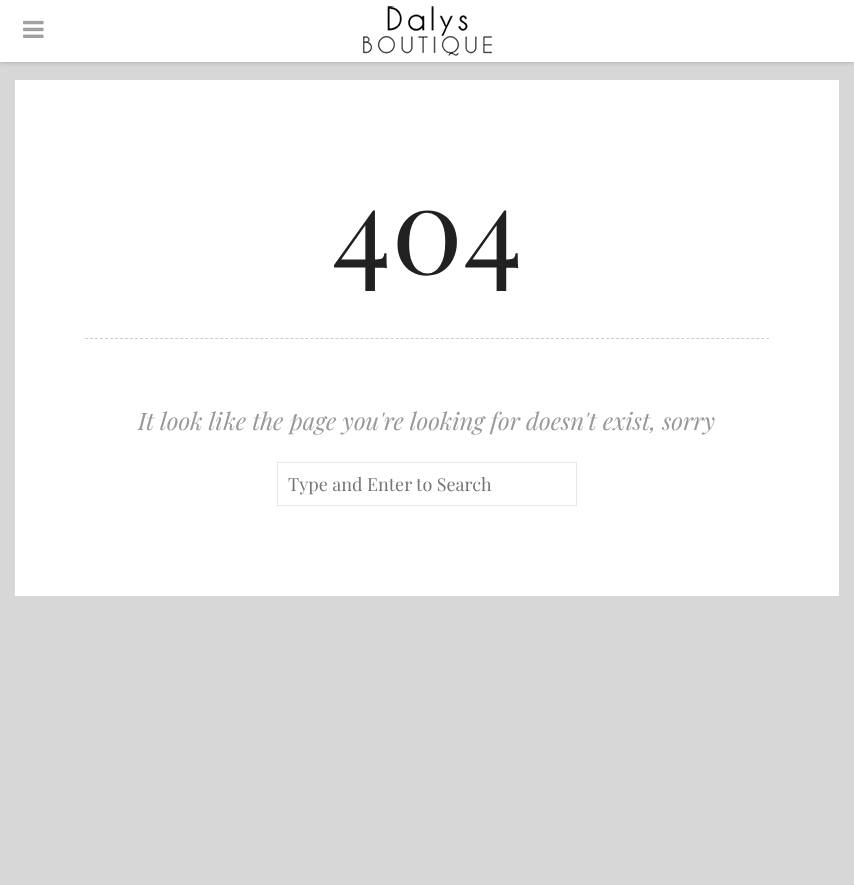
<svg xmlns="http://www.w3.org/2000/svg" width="854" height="885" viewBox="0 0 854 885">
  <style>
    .t1 { font: 120px Playfair Display; fill: #212121; }
    .t2 { font: italic 24px Playfair Display; fill: #999; }
    .t3 { font: 18px Playfair Display; fill: #757575; }
  </style>
  <rect width="100%" height="100%" fill="#d7d7d7"/>
  <rect x="0" y="0" width="854" height="62" fill="#00000040" filter="blur(2.5px)"/>
  <rect x="0" y="0" width="854" height="62" fill="#fff"/>
  <image x="23" y="20" width="21" height="18" href="images/1.png"/>
  <image x="363" y="6" width="129" height="50" href="images/2.png"/>
  <rect x="15" y="80" width="824" height="516" fill="#fff"/>
  <path d="M85 338.5H769" fill="none" stroke="#ccc" stroke-dasharray="3 2.01"/>
  <text x="332" y="274" class="t1">404</text>
  <text x="138" y="430" class="t2">It look like the page you're looking for doesn't exist, sorry</text>
  <rect x="277.5" y="462.5" width="299" height="43" fill="none" stroke="#e7e7e7"/>
  <text x="288" y="491" class="t3">Type and Enter to Search</text>
</svg>
